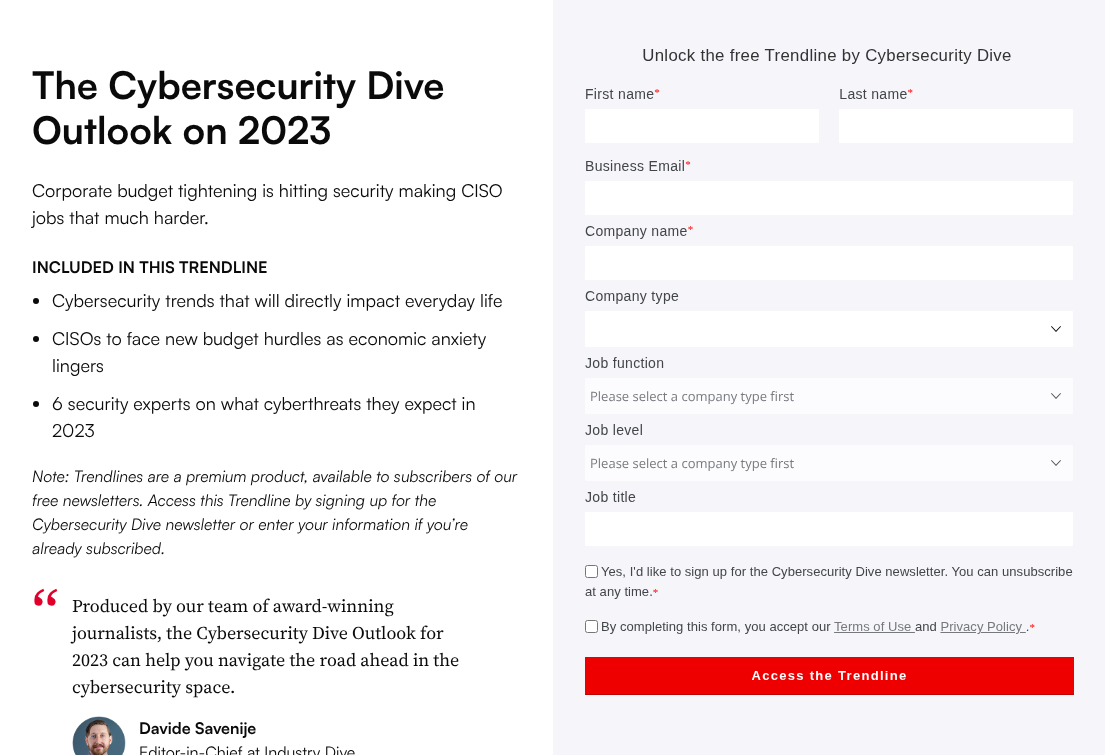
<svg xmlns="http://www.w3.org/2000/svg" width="1105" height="755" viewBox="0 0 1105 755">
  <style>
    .t1 { font: bold 38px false; fill: #0a0a0a; }
    .t2 { font: 18px false; fill: #0a0a0a; }
    .t3 { font: bold 16px false; fill: #0a0a0a; }
    .t4 { font: italic 16px false; fill: #0a0a0a; }
    .t5 { font: 64px 'Source Serif 4'; fill: #e0002b; }
    .t6 { font: 18px 'Source Serif 4'; fill: #0a0a0a; }
    .t7 { font: 16px false; fill: #0a0a0a; }
  </style>
  <rect width="100%" height="100%" fill="#fff"/>
  <rect x="553" y="0" width="552" height="755" fill="#f5f5fa"/>
  <text x="32" y="99" class="t1">The Cybersecurity Dive</text>
  <text x="32" y="144" class="t1">Outlook on 2023</text>
  <text x="32" y="197" class="t2">Corporate budget tightening is hitting security making CISO</text>
  <text x="32" y="224" class="t2">jobs that much harder.</text>
  <text x="32" y="273" class="t3">INCLUDED IN THIS TRENDLINE</text>
  <circle cx="36" cy="301" r="3" fill="#0a0a0a"/>
  <text x="52" y="307" class="t2">Cybersecurity trends that will directly impact everyday life</text>
  <circle cx="36" cy="339" r="3" fill="#0a0a0a"/>
  <text x="52" y="345" class="t2">CISOs to face new budget hurdles as economic anxiety</text>
  <text x="52" y="372" class="t2">lingers</text>
  <circle cx="36" cy="404" r="3" fill="#0a0a0a"/>
  <text x="52" y="410" class="t2">6 security experts on what cyberthreats they expect in</text>
  <text x="52" y="437" class="t2">2023</text>
  <text x="32" y="482" class="t4">Note: Trendlines are a premium product, available to subscribers of our</text>
  <text x="32" y="506" class="t4">free newsletters. Access this Trendline by signing up for the</text>
  <text x="32" y="530" class="t4">Cybersecurity Dive newsletter or enter your information if you’re</text>
  <text x="32" y="554" class="t4">already subscribed.</text>
  <text x="32" y="636" class="t5">“</text>
  <text x="72" y="612" class="t6">Produced by our team of award-winning</text>
  <text x="72" y="639" class="t6">journalists, the Cybersecurity Dive Outlook for</text>
  <text x="72" y="666" class="t6">2023 can help you navigate the road ahead in the</text>
  <text x="72" y="693" class="t6">cybersecurity space.</text>
  <image x="72" y="716" width="54" height="39" href="images/1.png"/>
  <text x="139" y="734" class="t3">Davide Savenije</text>
  <text x="139" y="758" class="t7">Editor-in-Chief at Industry Dive</text>
  <image x="585" y="49" width="489" height="646" href="images/2.png"/>
</svg>
